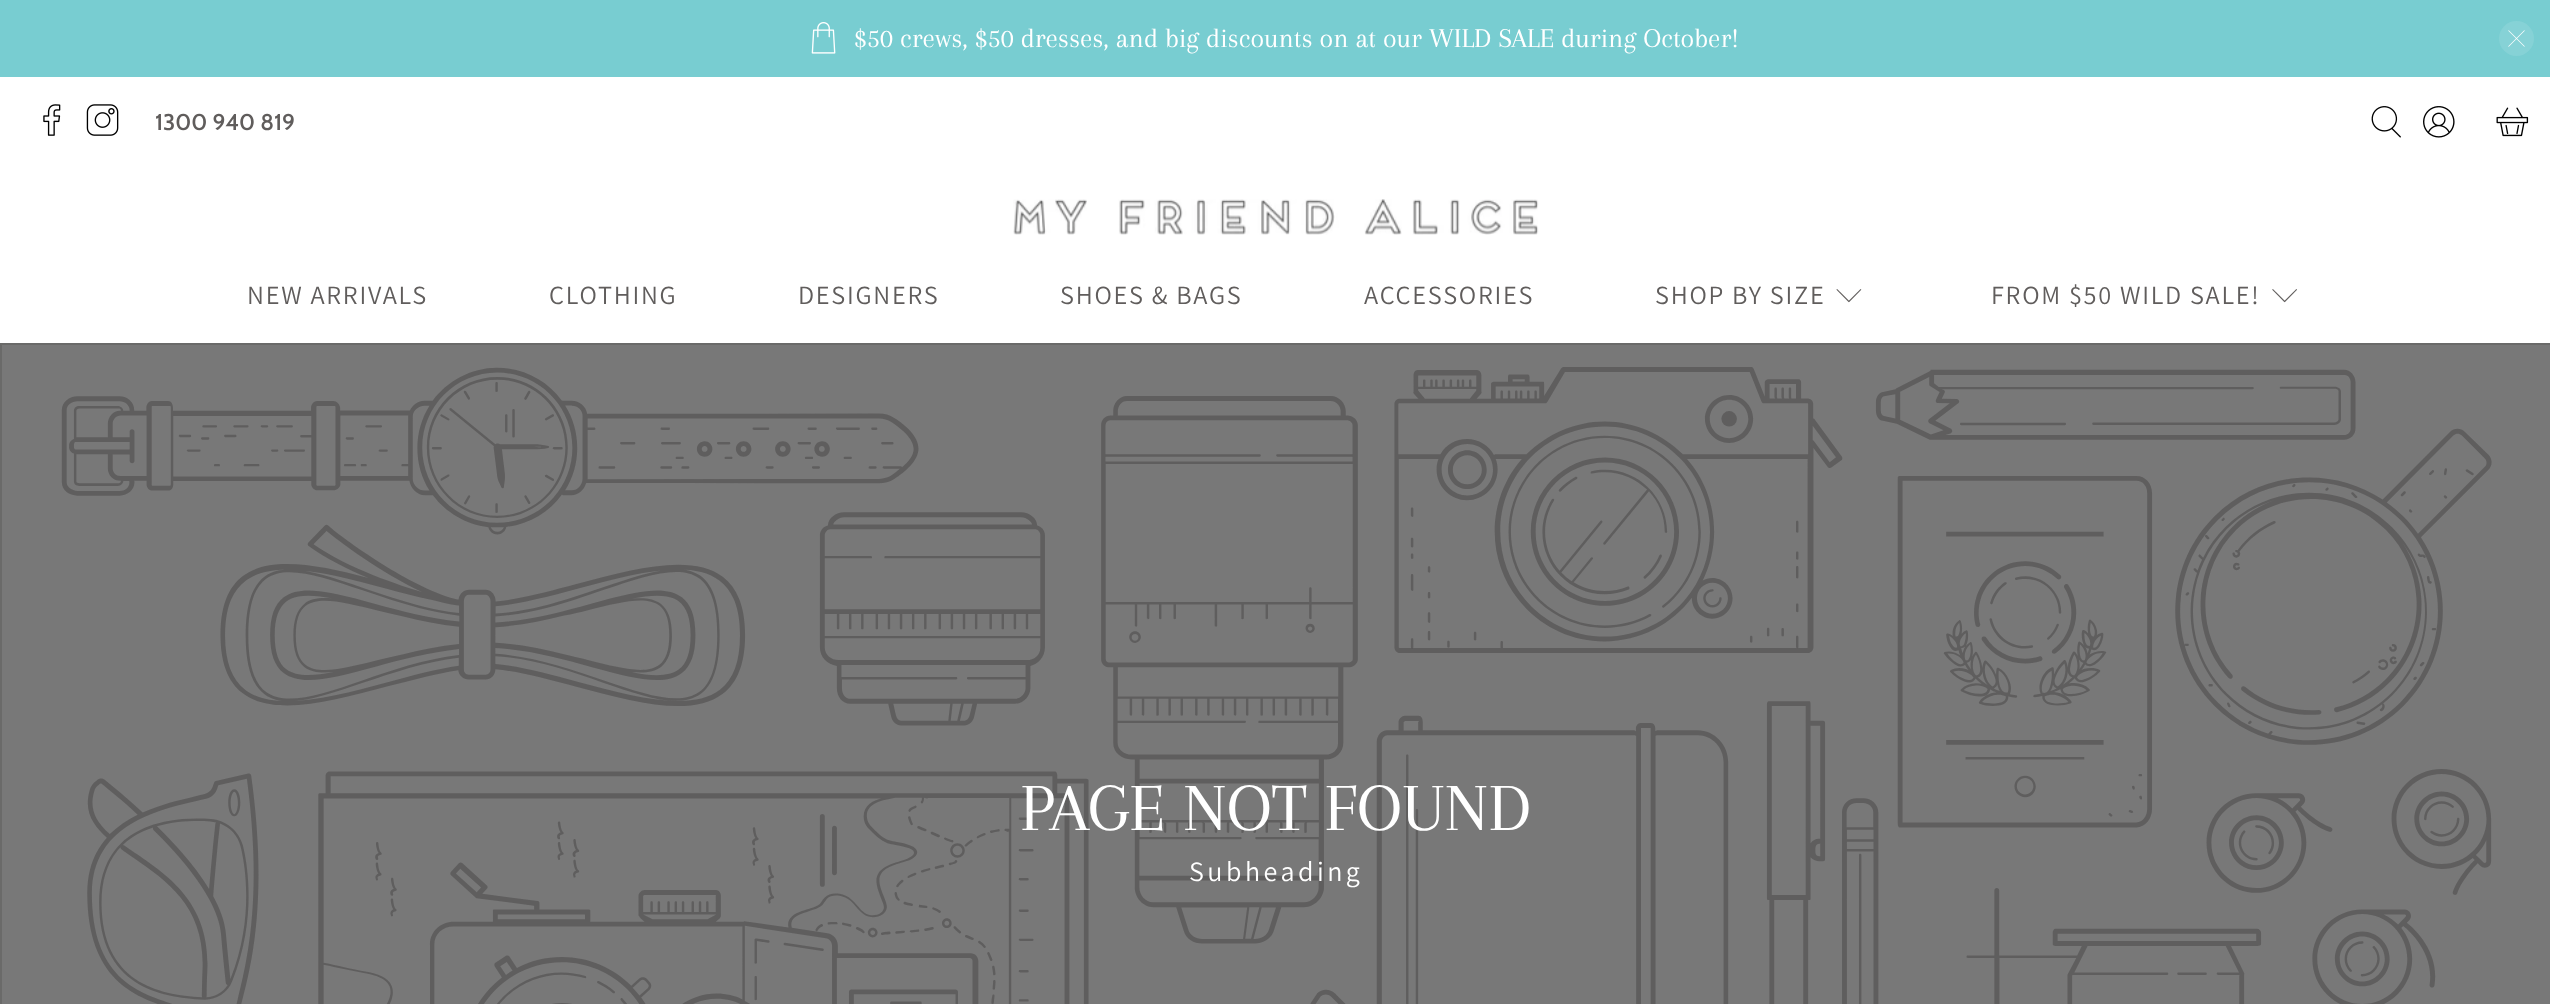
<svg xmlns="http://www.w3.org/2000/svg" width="2550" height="1004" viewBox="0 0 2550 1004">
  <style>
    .t1 { font: 28px Arapey; fill: #fff; }
    .t2 { font: 600 22.75px Cabin; fill: #605d5c; }
    .t3 { font: 26.25px Assistant; letter-spacing: 1.75px; fill: #605d5c; }
    .t4 { font: 70px Arapey; fill: #fff; }
    .t5 { font: 28px Assistant; letter-spacing: 3.5px; fill: #fff; }
  </style>
  <rect width="100%" height="100%" fill="#fff"/>
  <rect x="0" y="0" width="2550" height="77" fill="#78cdd1"/>
  <image x="811" y="22" width="25" height="32" href="images/1.png"/>
  <text x="854" y="47" class="t1">$50 crews, $50 dresses, and big discounts on at our WILD SALE during October!</text>
  <circle cx="2516.5" cy="38.5" r="17.5" fill="#86d2d6"/>
  <image x="2508" y="30" width="17" height="17" href="images/2.png"/>
  <image x="43" y="104" width="18" height="32" href="images/3.png"/>
  <image x="86" y="104" width="33" height="32" href="images/4.png"/>
  <text x="155" y="130" class="t2">1300 940 819</text>
  <image x="2371" y="106" width="30" height="32" href="images/5.png"/>
  <image x="2423" y="106" width="32" height="32" href="images/6.png"/>
  <image x="2496" y="107" width="33" height="30" href="images/7.png"/>
  <image x="1013" y="199" width="526" height="36" href="images/8.png"/>
  <text x="247" y="304" class="t3">NEW ARRIVALS</text>
  <text x="549" y="304" class="t3">CLOTHING</text>
  <text x="798" y="304" class="t3">DESIGNERS</text>
  <text x="1060" y="304" class="t3">SHOES &amp; BAGS</text>
  <text x="1364" y="304" class="t3">ACCESSORIES</text>
  <text x="1655" y="304" class="t3">SHOP BY SIZE</text>
  <image x="1836" y="289" width="26" height="14" href="images/9.png"/>
  <text x="1991" y="304" class="t3">FROM $50 WILD SALE!</text>
  <image x="2272" y="289" width="25" height="14" href="images/10.png"/>
  <rect x="1" y="344" width="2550" height="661" fill="#787878" stroke="#6a6a69" stroke-width="2"/>
  <image x="61" y="367" width="2431" height="637" href="images/11.png"/>
  <text x="1020" y="830" class="t4">PAGE NOT FOUND</text>
  <text x="1189" y="881" class="t5">Subheading</text>
</svg>
